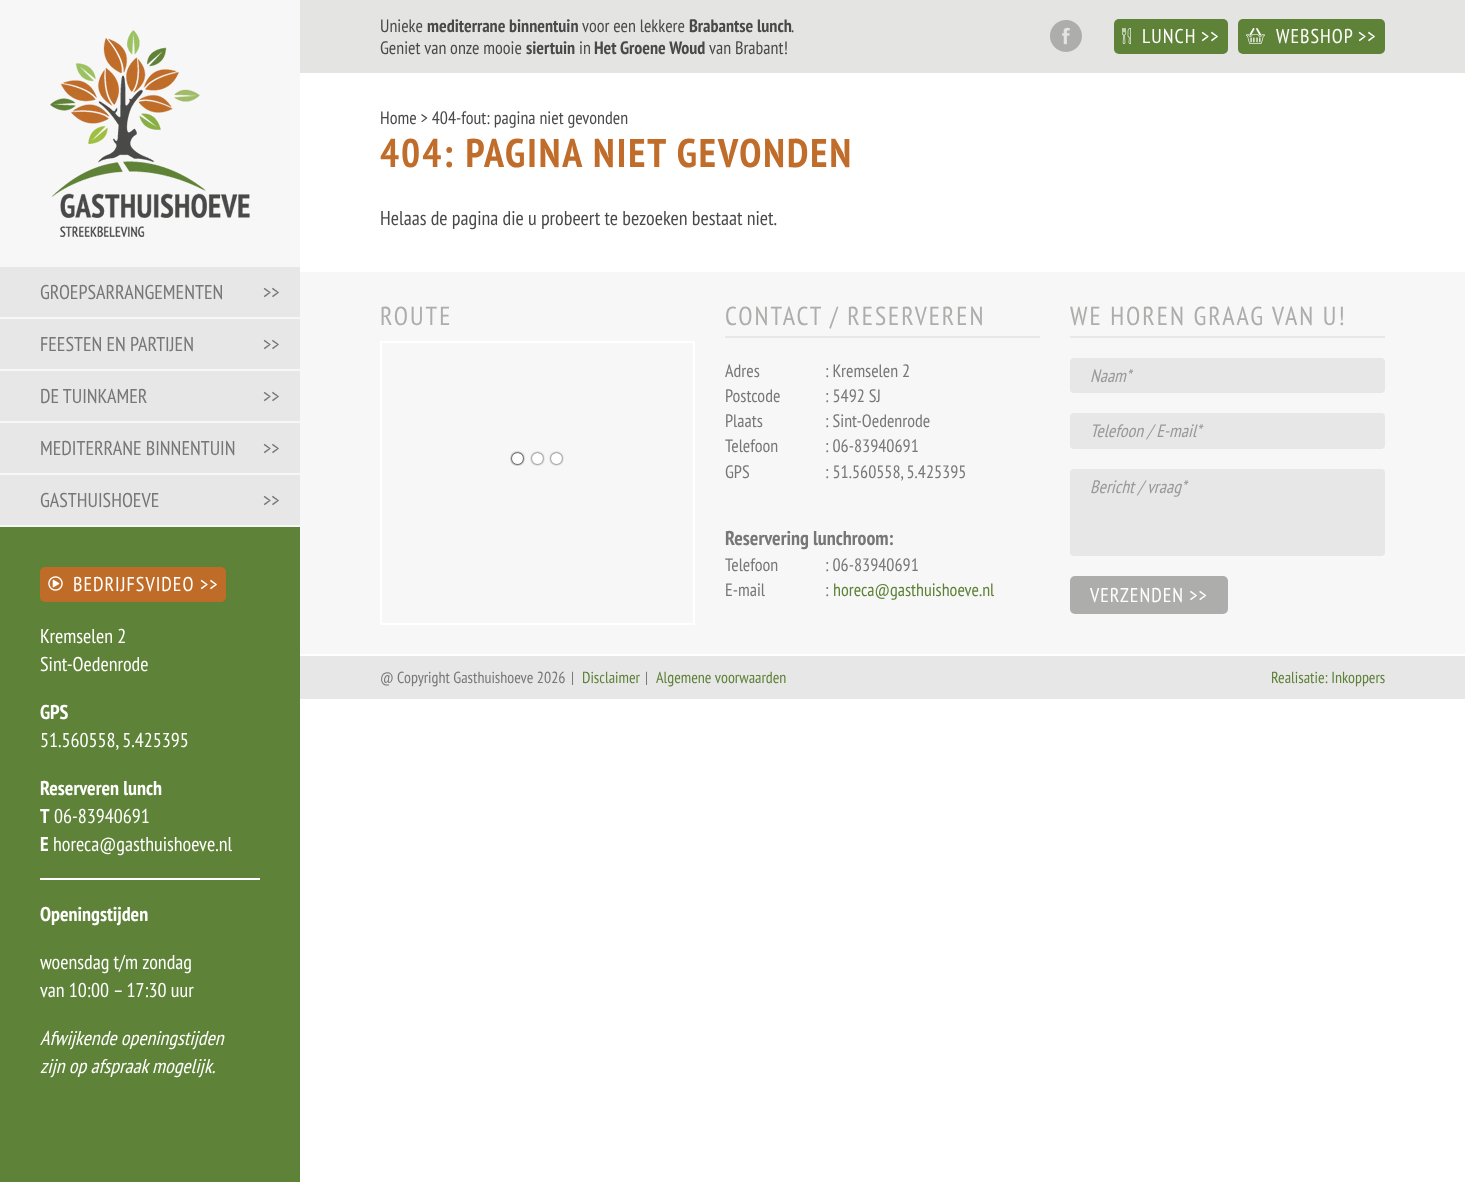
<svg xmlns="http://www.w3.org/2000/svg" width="1465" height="1182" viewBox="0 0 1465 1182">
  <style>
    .t1 { font: 20px PT Sans Narrow; fill: #777; }
    .t2 { font: 20px PT Sans Narrow; letter-spacing: 1px; fill: #fff; }
    .t3 { font: 20px PT Sans Narrow; fill: #fff; }
    .t4 { font: bold 20px PT Sans Narrow; fill: #fff; }
    .t5 { font: italic 20px PT Sans Narrow; fill: #fff; }
    .t6 { font: 18px PT Sans Narrow; fill: #4a4949; }
    .t7 { font: bold 18px PT Sans Narrow; fill: #4a4949; }
    .t8 { font: bold 40px PT Sans Narrow; letter-spacing: 2px; fill: #c06c2a; }
    .t9 { font: 20px PT Sans Narrow; fill: #4a4949; }
    .t10 { font: 26px PT Sans Narrow; letter-spacing: 2px; fill: #adadac; }
    .t11 { font: 18px PT Sans Narrow; fill: #777; }
    .t12 { font: bold 20px PT Sans Narrow; fill: #777; }
    .t13 { font: 18px PT Sans Narrow; fill: #5d8136; }
    .t14 { font: italic 18px PT Sans Narrow; fill: #999; }
    .t15 { font: 16px PT Sans Narrow; fill: #777; }
    .t16 { font: 16px PT Sans Narrow; fill: #5d8136; }
  </style>
  <rect width="100%" height="100%" fill="#fff"/>
  <rect x="0" y="527" width="300" height="655" fill="#5e8237"/>
  <rect x="0" y="0" width="300" height="267" fill="#f7f7f7"/>
  <image x="50" y="30" width="200" height="207" href="images/1.png"/>
  <rect x="0" y="317" width="300" height="210" fill="#f7f7f7"/>
  <rect x="0" y="267" width="300" height="50" fill="#e7e7e7"/>
  <text x="40" y="299" class="t1">GROEPSARRANGEMENTEN</text>
  <text x="263" y="299" class="t1">&gt;&gt;</text>
  <rect x="0" y="319" width="300" height="50" fill="#e7e7e7"/>
  <text x="40" y="351" class="t1">FEESTEN EN PARTIJEN</text>
  <text x="263" y="351" class="t1">&gt;&gt;</text>
  <rect x="0" y="371" width="300" height="50" fill="#e7e7e7"/>
  <text x="40" y="403" class="t1">DE TUINKAMER</text>
  <text x="263" y="403" class="t1">&gt;&gt;</text>
  <rect x="0" y="423" width="300" height="50" fill="#e7e7e7"/>
  <text x="40" y="455" class="t1">MEDITERRANE BINNENTUIN</text>
  <text x="263" y="455" class="t1">&gt;&gt;</text>
  <rect x="0" y="475" width="300" height="50" fill="#e7e7e7"/>
  <text x="40" y="507" class="t1">GASTHUISHOEVE</text>
  <text x="263" y="507" class="t1">&gt;&gt;</text>
  <rect x="40" y="567" width="186" height="35" rx="5" fill="#c06c29"/>
  <image x="48" y="576" width="15" height="15" href="images/2.png"/>
  <text x="73" y="591" class="t2">BEDRIJFSVIDEO</text>
  <text x="200" y="591" class="t2">&gt;&gt;</text>
  <text x="40" y="643" class="t3">Kremselen 2</text>
  <text x="40" y="671" class="t3">Sint-Oedenrode</text>
  <text x="40" y="719" class="t4">GPS</text>
  <text x="40" y="747" class="t3">51.560558, 5.425395</text>
  <text x="40" y="795" class="t4">Reserveren lunch</text>
  <text x="40" y="823" class="t4">T</text>
  <text x="54" y="823" class="t3">06-83940691</text>
  <text x="40" y="851" class="t4">E</text>
  <text x="53" y="851" class="t3">horeca@gasthuishoeve.nl</text>
  <rect x="40" y="878" width="220" height="2" fill="#fff"/>
  <text x="40" y="921" class="t4">Openingstijden</text>
  <text x="40" y="969" class="t3">woensdag t/m zondag</text>
  <text x="40" y="997" class="t3">van 10:00 – 17:30 uur</text>
  <text x="40" y="1045" class="t5">Afwijkende openingstijden</text>
  <text x="40" y="1073" class="t5">zijn op afspraak mogelijk.</text>
  <rect x="300" y="0" width="1165" height="73" fill="#e4e4e3"/>
  <text x="380" y="32" class="t6">Unieke</text>
  <text x="427" y="32" class="t7">mediterrane binnentuin</text>
  <text x="582" y="32" class="t6">voor een lekkere</text>
  <text x="689" y="32" class="t7">Brabantse lunch</text>
  <text x="791" y="32" class="t6">.</text>
  <text x="380" y="54" class="t6">Geniet van onze mooie</text>
  <text x="526" y="54" class="t7">siertuin</text>
  <text x="579" y="54" class="t6">in</text>
  <text x="594" y="54" class="t7">Het Groene Woud</text>
  <text x="709" y="54" class="t6">van Brabant!</text>
  <image x="1050" y="20" width="32" height="32" href="images/3.png"/>
  <rect x="1114" y="19" width="114" height="35" rx="5" fill="#5e8237"/>
  <image x="1122" y="28" width="9" height="16" href="images/4.png"/>
  <text x="1142" y="43" class="t2">LUNCH</text>
  <text x="1201" y="43" class="t2">&gt;&gt;</text>
  <rect x="1238" y="19" width="147" height="35" rx="5" fill="#5e8237"/>
  <image x="1246" y="28" width="19" height="16" href="images/5.png"/>
  <text x="1276" y="43" class="t2">WEBSHOP</text>
  <text x="1358" y="43" class="t2">&gt;&gt;</text>
  <text x="380" y="124" class="t6">Home &gt; 404-fout: pagina niet gevonden</text>
  <text x="380" y="167" class="t8">404: PAGINA NIET GEVONDEN</text>
  <text x="380" y="225" class="t9">Helaas de pagina die u probeert te bezoeken bestaat niet.</text>
  <rect x="300" y="272" width="1165" height="382" fill="#f7f7f7"/>
  <text x="380" y="325" class="t10">ROUTE</text>
  <rect x="381" y="342" width="313" height="282" fill="none" stroke="#fff" stroke-width="2"/>
  <rect x="512" y="453" width="11" height="11" rx="5.5" fill="#000" filter="blur(1px)"/>
  <rect x="512" y="453" width="11" height="11" rx="5.5" fill="#000" filter="blur(1px)"/>
  <circle cx="517.5" cy="458.5" r="5.5" fill="#fff"/>
  <rect x="532" y="453" width="11" height="11" rx="5.5" fill="#000" filter="blur(1px)"/>
  <circle cx="537.5" cy="458.5" r="5.5" fill="#fff"/>
  <rect x="551" y="453" width="11" height="11" rx="5.5" fill="#000" filter="blur(1px)"/>
  <circle cx="556.5" cy="458.5" r="5.5" fill="#fff"/>
  <text x="725" y="325" class="t10">CONTACT / RESERVEREN</text>
  <rect x="725" y="336" width="315" height="2" fill="#e7e7e7"/>
  <text x="725" y="377" class="t11">Adres</text>
  <text x="825" y="377" class="t11">: Kremselen 2</text>
  <text x="725" y="402" class="t11">Postcode</text>
  <text x="825" y="402" class="t11">: 5492 SJ</text>
  <text x="725" y="427" class="t11">Plaats</text>
  <text x="825" y="427" class="t11">: Sint-Oedenrode</text>
  <text x="725" y="452" class="t11">Telefoon</text>
  <text x="825" y="452" class="t11">: 06-83940691</text>
  <text x="725" y="478" class="t11">GPS</text>
  <text x="825" y="478" class="t11">: 51.560558, 5.425395</text>
  <text x="725" y="545" class="t12">Reservering lunchroom:</text>
  <text x="725" y="571" class="t11">Telefoon</text>
  <text x="825" y="571" class="t11">: 06-83940691</text>
  <text x="725" y="596" class="t11">E-mail</text>
  <text x="825" y="596" class="t11">:</text>
  <text x="833" y="596" class="t13">horeca@gasthuishoeve.nl</text>
  <text x="1070" y="325" class="t10">WE HOREN GRAAG VAN U!</text>
  <rect x="1070" y="336" width="315" height="2" fill="#e7e7e7"/>
  <rect x="1070" y="358" width="315" height="35" rx="4" fill="#e7e7e7"/>
  <text x="1090" y="382" class="t14">Naam*</text>
  <rect x="1070" y="413" width="315" height="36" rx="4" fill="#e7e7e7"/>
  <text x="1090" y="437" class="t14">Telefoon / E-mail*</text>
  <rect x="1070" y="469" width="315" height="87" rx="4" fill="#e7e7e7"/>
  <text x="1090" y="493" class="t14">Bericht / vraag*</text>
  <rect x="1070" y="576" width="158" height="38" rx="5" fill="#adadac"/>
  <text x="1090" y="602" class="t2">VERZENDEN &gt;&gt;</text>
  <rect x="300" y="656" width="1165" height="43" fill="#e7e7e7"/>
  <text x="380" y="683" class="t15">@ Copyright Gasthuishoeve 2026</text>
  <text x="571" y="683" class="t15">|</text>
  <text x="582" y="683" class="t16">Disclaimer</text>
  <text x="645" y="683" class="t15">|</text>
  <text x="656" y="683" class="t16">Algemene voorwaarden</text>
  <text x="1271" y="683" class="t16">Realisatie: Inkoppers</text>
</svg>
